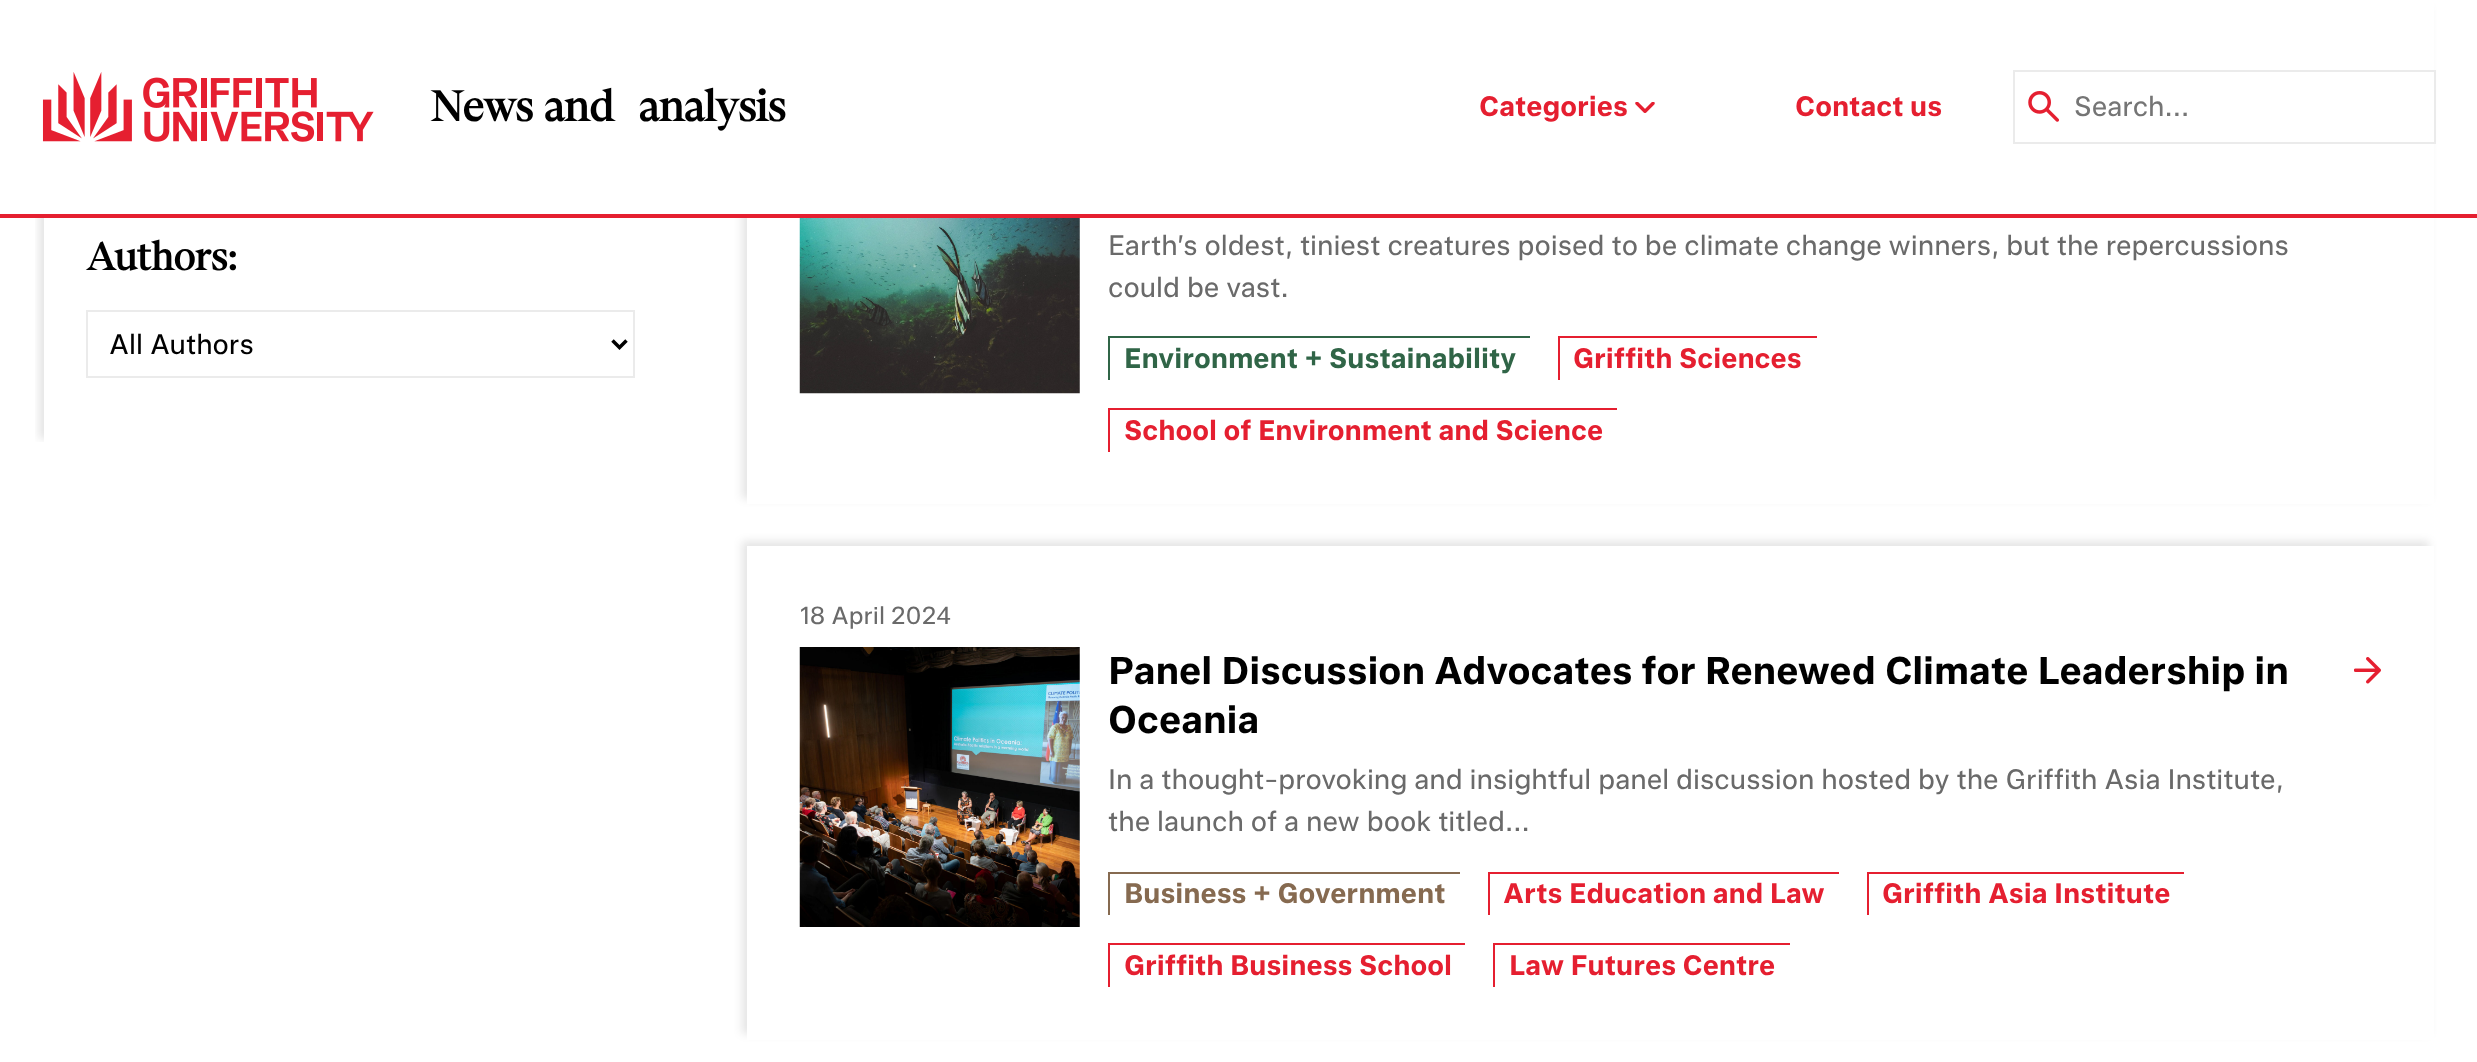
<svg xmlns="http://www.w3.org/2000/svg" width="2477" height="1062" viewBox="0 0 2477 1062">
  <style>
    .t1 { font: bold 42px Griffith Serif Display; fill: #000; }
    .t2 { font: bold 28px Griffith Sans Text; fill: #e51f30; }
    .t3 { font: 28px Griffith Sans Text; fill: #757575; }
    .t4 { font: bold 38.5px Griffith Serif Display; fill: #000; }
    .t5 { font: 28px Griffith Sans Text; fill: #000; }
    .t6 { font: 28px Griffith Sans Text; fill: #6a6a6a; }
    .t7 { font: bold 28px Griffith Sans Text; fill: #306547; }
    .t8 { font: 24.5px Griffith Sans Text; fill: #6a6a6a; }
    .t9 { font: bold 38.5px Griffith Sans Text; fill: #000; }
    .t10 { font: bold 28px Griffith Sans Text; fill: #866a50; }
  </style>
  <defs>
    <clipPath id="clip1"><rect x="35" y="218" width="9" height="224"/></clipPath>
    <clipPath id="clip2"><path d="M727 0H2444V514H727ZM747 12H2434V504H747Z" clip-rule="evenodd"/></clipPath>
    <clipPath id="clip3"><path d="M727 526H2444V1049H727ZM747 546H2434V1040H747Z" clip-rule="evenodd"/></clipPath>
  </defs>
  <rect width="100%" height="100%" fill="#fff"/>
  <g clip-path="url(#clip1)">
    <rect x="39" y="-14" width="633" height="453" fill="#0000001a" filter="blur(4.5px)"/>
  </g>
  <g clip-path="url(#clip2)">
    <rect x="742" y="7" width="1687" height="492" fill="#0000001a" filter="blur(4.5px)"/>
  </g>
  <rect x="33" y="0" width="2401" height="214" fill="#fff"/>
  <rect x="0" y="214" width="2477" height="4" fill="#e51f30"/>
  <image x="42" y="72" width="332" height="70" href="images/1.png"/>
  <text x="431" y="121" class="t1">News</text>
  <text x="544" y="121" word-spacing="17" class="t1">and analysis</text>
  <text x="1479" y="116" class="t2">Categories</text>
  <image x="1635" y="102" width="20" height="11" href="images/2.png"/>
  <text x="1795" y="116" class="t2">Contact us</text>
  <rect x="2014" y="71" width="421" height="72" fill="none" stroke="#ebebeb" stroke-width="2"/>
  <image x="2028" y="91" width="31" height="31" href="images/3.png"/>
  <text x="2074" y="116" class="t3">Search...</text>
  <text x="86" y="270" class="t4">Authors:</text>
  <rect x="87" y="311" width="547" height="66" fill="none" stroke="#ebebeb" stroke-width="2"/>
  <path d="M612.5 340.5L619.5 347.5L626.5 340.5" fill="none" stroke="#000" stroke-width="3.5"/>
  <text x="109" y="354" class="t5">All Authors</text>
  <image x="799" y="218" width="281" height="176" href="images/4.png"/>
  <text x="1108" y="255" class="t6">Earth’s oldest, tiniest creatures poised to be climate change winners, but the repercussions</text>
  <text x="1108" y="297" class="t6">could be vast.</text>
  <rect x="1108" y="336" width="422" height="2" fill="#306547"/>
  <rect x="1108" y="336" width="2" height="44" fill="#306547"/>
  <text x="1124" y="368" class="t7">Environment + Sustainability</text>
  <rect x="1558" y="336" width="259" height="2" fill="#e51f30"/>
  <rect x="1558" y="336" width="2" height="44" fill="#e51f30"/>
  <text x="1573" y="368" class="t2">Griffith Sciences</text>
  <rect x="1108" y="408" width="509" height="2" fill="#e51f30"/>
  <rect x="1108" y="408" width="2" height="44" fill="#e51f30"/>
  <text x="1124" y="440" class="t2">School of Environment and Science</text>
  <g clip-path="url(#clip3)">
    <rect x="742" y="541" width="1687" height="493" fill="#0000001a" filter="blur(4.5px)"/>
  </g>
  <text x="800" y="624" class="t8">18 April 2024</text>
  <image x="799" y="647" width="281" height="280" href="images/5.png"/>
  <text x="1108" y="684" class="t9">Panel Discussion Advocates for Renewed Climate Leadership in</text>
  <text x="1108" y="733" class="t9">Oceania</text>
  <text x="1108" y="789" class="t6">In a thought-provoking and insightful panel discussion hosted by the Griffith Asia Institute,</text>
  <text x="1108" y="831" class="t6">the launch of a new book titled...</text>
  <rect x="1108" y="872" width="352" height="2" fill="#866a50"/>
  <rect x="1108" y="872" width="2" height="43" fill="#866a50"/>
  <text x="1124" y="903" class="t10">Business + Government</text>
  <rect x="1488" y="872" width="351" height="2" fill="#e51f30"/>
  <rect x="1488" y="872" width="2" height="43" fill="#e51f30"/>
  <text x="1503" y="903" class="t2">Arts Education and Law</text>
  <rect x="1867" y="872" width="317" height="2" fill="#e51f30"/>
  <rect x="1867" y="872" width="2" height="43" fill="#e51f30"/>
  <text x="1882" y="903" class="t2">Griffith Asia Institute</text>
  <rect x="1108" y="943" width="357" height="2" fill="#e51f30"/>
  <rect x="1108" y="943" width="2" height="44" fill="#e51f30"/>
  <text x="1124" y="975" class="t2">Griffith Business School</text>
  <rect x="1493" y="943" width="297" height="2" fill="#e51f30"/>
  <rect x="1493" y="943" width="2" height="44" fill="#e51f30"/>
  <text x="1509" y="975" class="t2">Law Futures Centre</text>
  <image x="2354" y="657" width="27" height="27" href="images/6.png"/>
</svg>
